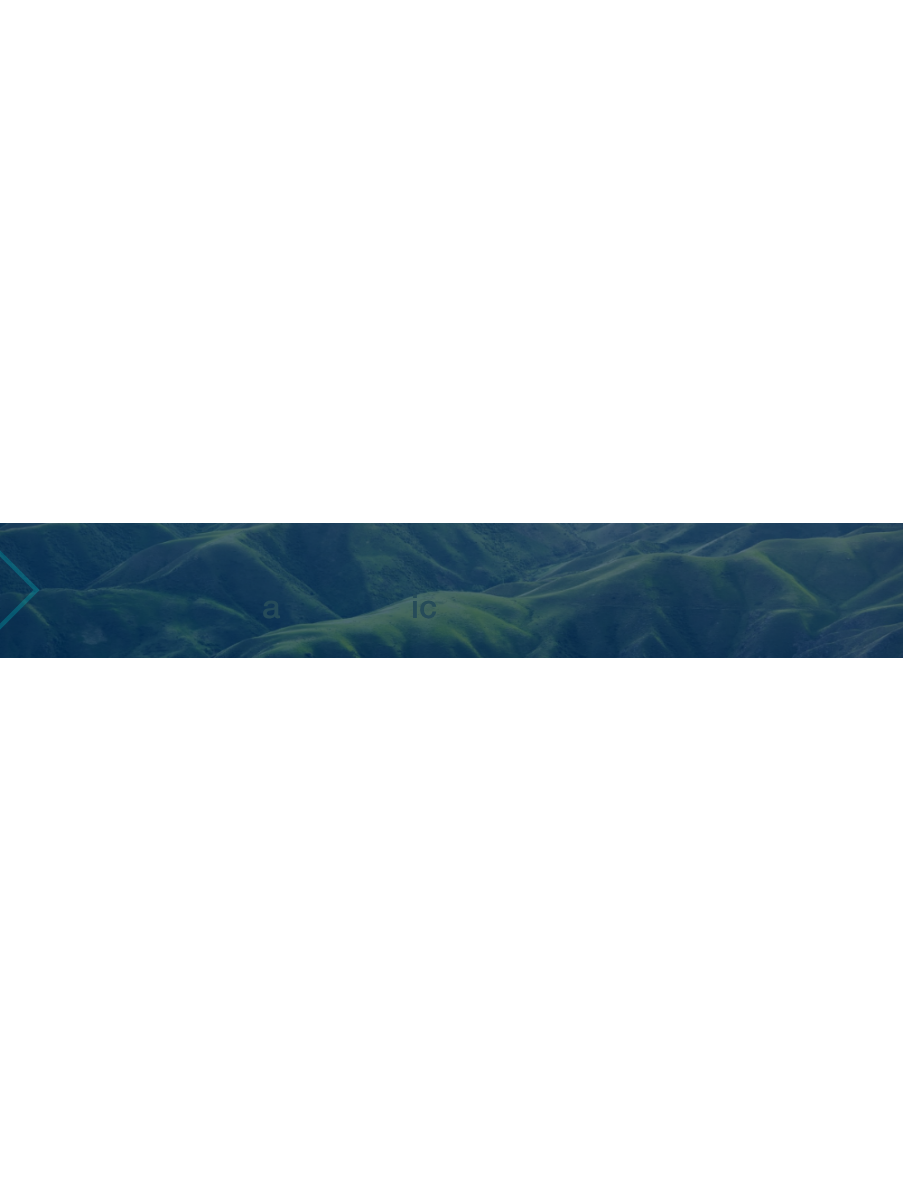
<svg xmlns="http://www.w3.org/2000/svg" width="903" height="1181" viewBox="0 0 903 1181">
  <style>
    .t1 { font: 33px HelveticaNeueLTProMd; fill: #264b59; }
  </style>
  <rect width="100%" height="100%" fill="#fff"/>
  <image x="0" y="523" width="903" height="135" href="images/1.png"/>
  <path d="M-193 590L-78 475.5L36.5 590L-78 705Z" fill="none" stroke="#00c5ce47" stroke-width="4.5"/>
  <text x="262" y="618" class="t1">a</text>
  <text x="411" y="618" class="t1">ic</text>
</svg>
